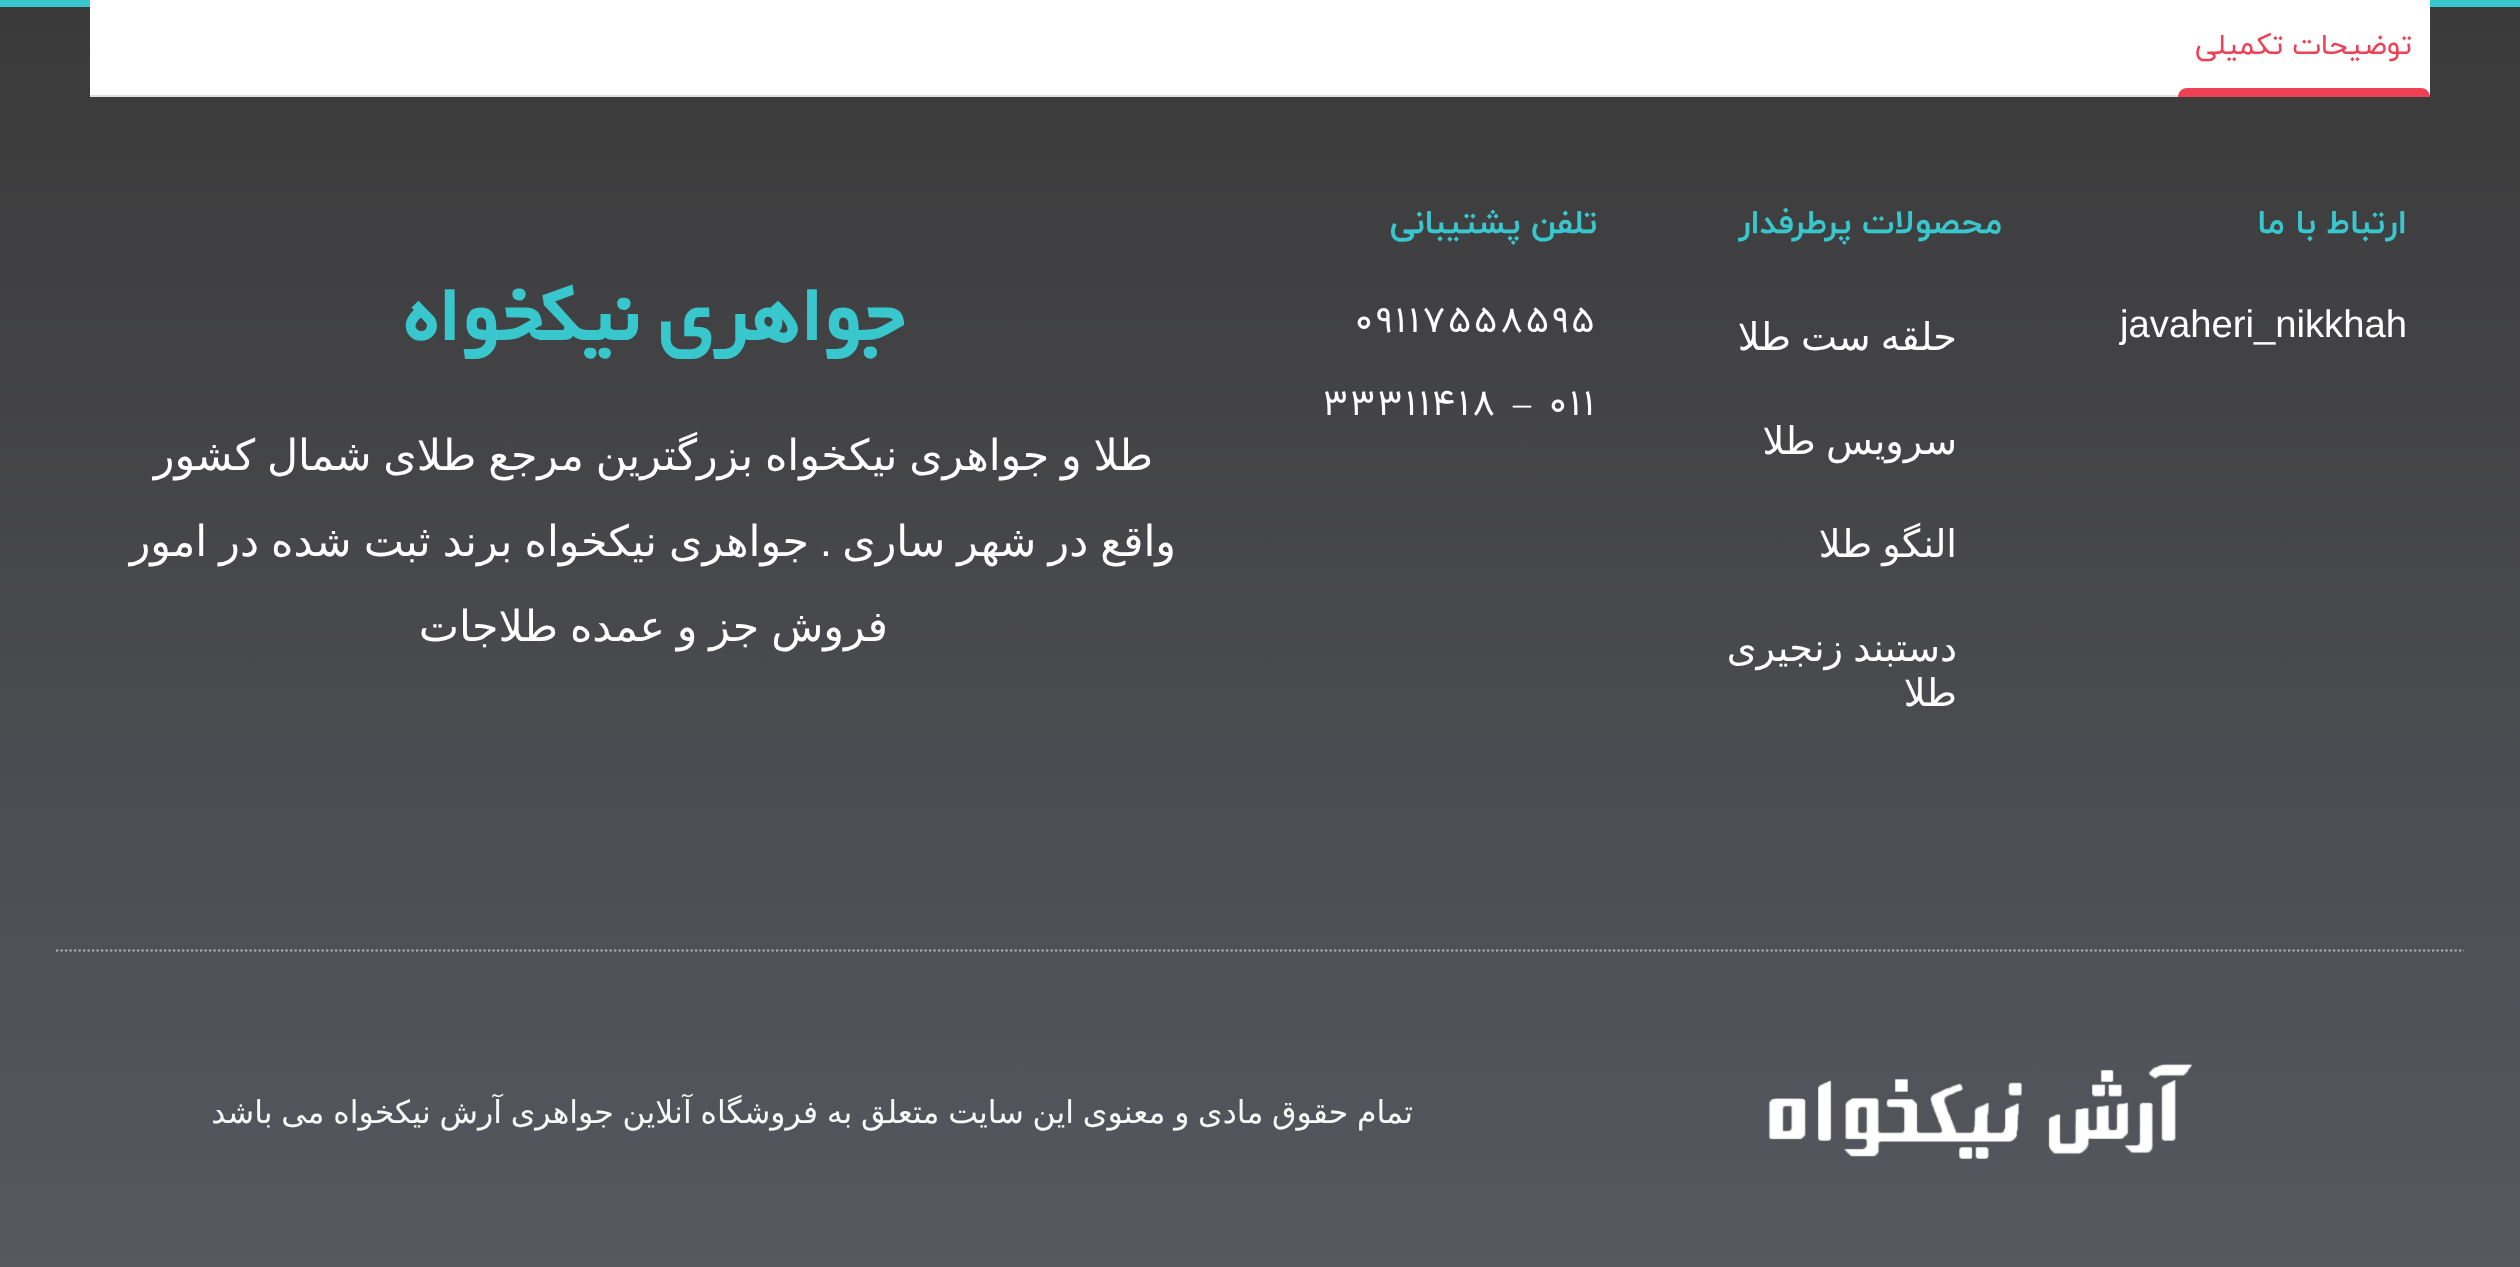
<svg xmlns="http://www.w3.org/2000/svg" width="2520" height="1267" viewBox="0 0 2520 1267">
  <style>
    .t1 { font: 29.25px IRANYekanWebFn; direction: rtl; fill: #ef4056; }
    .t2 { font: bold 33.75px IRANYekanWebFn; direction: rtl; fill: #39c7ce; }
    .t3 { font: 38.25px Liberation Sans; fill: #fff; }
    .t4 { font: 38.25px DejaVu Sans; direction: rtl; fill: #fff; }
    .t5 { font: 36px IRANYekanWebFn; letter-spacing: 3.4px; fill: #fff; }
    .t6 { font: 36px Liberation Serif; letter-spacing: 3.4px; fill: #fff; }
    .t7 { font: bold 85.5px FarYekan; direction: rtl; fill: #39c7ce; }
    .t8 { font: 42.75px DejaVu Sans; direction: rtl; fill: #fff; }
    .t9 { font: 42.75px Liberation Sans; direction: rtl; fill: #fff; }
    .t10 { font: 31.5px DejaVu Sans; direction: rtl; fill: #f8f8f8; }
  </style>
  <defs>
    <linearGradient id="g1" gradientUnits="userSpaceOnUse" x1="1260" y1="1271" x2="1260" y2="6.7"><stop offset="0" stop-color="#575860"/><stop offset="1" stop-color="#3a3a3a"/></linearGradient>
  </defs>
  <rect width="100%" height="100%" fill="#fff"/>
  <rect x="0" y="7" width="2520" height="1260" fill="url(#g1)"/>
  <rect x="0" y="0" width="2520" height="7" fill="#39c7ce"/>
  <rect x="90" y="0" width="2340" height="95" fill="#fff"/>
  <rect x="90" y="95" width="2340" height="2" fill="#e0e0e2"/>
  <text x="2412" y="54" class="t1">توضیحات تکمیلی</text>
  <path d="M2187 88H2421C2426 88 2430 92 2430 97H2178C2178 92 2182 88 2187 88Z" fill="#ef4056"/>
  <text x="2407" y="233" class="t2">ارتباط با ما</text>
  <text x="2120" y="337" class="t3">javaheri_nikkhah</text>
  <text x="2002" y="233" class="t2">محصولات پرطرفدار</text>
  <text x="1957" y="350" word-spacing="-2" class="t4">حلقه ست طلا</text>
  <text x="1957" y="454" word-spacing="-2" class="t4">سرویس طلا</text>
  <text x="1957" y="557" word-spacing="-2" class="t4">النگو طلا</text>
  <text x="1957" y="661" word-spacing="-2" class="t4">دستبند زنجیری</text>
  <text x="1957" y="706" class="t4">طلا</text>
  <text x="1597" y="233" class="t2">تلفن پشتیبانی</text>
  <text x="1355" y="332" class="t5">09117558595</text>
  <text x="1549" y="415" class="t5">011</text>
  <text x="1513" y="415" class="t6">–</text>
  <text x="1324" y="415" class="t5">33311418</text>
  <text x="903" y="340" class="t7">جواهری نیکخواه</text>
  <text x="1153" y="470" word-spacing="-1.75" class="t8">طلا و جواهری نیکخواه بزرگترین مرجع طلای شمال کشور</text>
  <text x="1176" y="556" word-spacing="-1.5" class="t8">واقع در شهر ساری</text>
  <text x="832" y="556" class="t9">.</text>
  <text x="809" y="556" word-spacing="-1.5" class="t8">جواهری نیکخواه برند ثبت شده در امور</text>
  <text x="888" y="641" word-spacing="-1.75" class="t8">فروش جز و عمده طلاجات</text>
  <path d="M56 950.5H2464" fill="none" stroke="#b2b2b5" stroke-width="2.2" stroke-dasharray="2.25 2.25"/>
  <image x="1768" y="1063" width="424" height="96" href="images/1.png"/>
  <text x="1413" y="1123" word-spacing="-1.25" class="t10">تمام حقوق مادی و معنوی این سایت متعلق به فروشگاه آنلاین جواهری آرش نیکخواه می باشد</text>
</svg>
